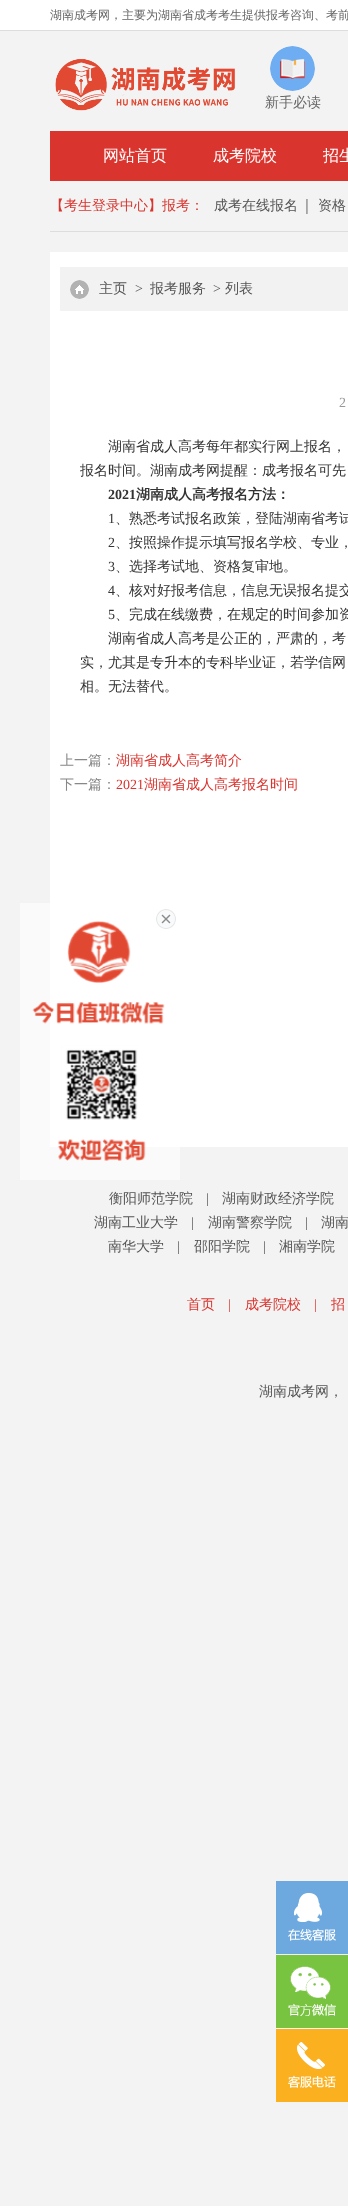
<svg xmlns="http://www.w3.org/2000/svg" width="348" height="2206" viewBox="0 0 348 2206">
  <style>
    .t1 { font: 500 12px WenQuanYi Zen Hei; fill: #666; }
    .t2 { font: 500 14px WenQuanYi Zen Hei; fill: #666; }
    .t3 { font: 500 16px WenQuanYi Zen Hei; fill: #fff; }
    .t4 { font: 500 14px WenQuanYi Zen Hei; fill: #d9342e; }
    .t5 { font: 500 14px WenQuanYi Zen Hei; fill: #555; }
    .t6 { font: 14px Liberation Serif; fill: #555; }
    .t7 { font: 14px Liberation Serif; fill: #999; }
    .t8 { font: 500 14px WenQuanYi Zen Hei; fill: #333; }
    .t9 { font: bold 14px Liberation Serif; fill: #333; }
    .t10 { font: bold 14px WenQuanYi Zen Hei; fill: #333; }
    .t11 { font: 14px Liberation Serif; fill: #333; }
    .t12 { font: 500 14px WenQuanYi Zen Hei; fill: #888; }
    .t13 { font: 14px Liberation Serif; fill: #d9342e; }
  </style>
  <rect width="100%" height="100%" fill="#f3f3f3"/>
  <rect x="20" y="903" width="160" height="277" fill="#fafafa"/>
  <rect x="0" y="0" width="348" height="30" fill="#fff"/>
  <rect x="0" y="30" width="348" height="1" fill="#ddd"/>
  <text x="50" y="19" class="t1">湖南成考网，主要为湖南省成考考生提供报考咨询、考前</text>
  <image x="55" y="59" width="180" height="52" href="images/1.png"/>
  <image x="270" y="46" width="45" height="45" href="images/2.png"/>
  <text x="265" y="107" class="t2">新手必读</text>
  <rect x="50" y="131" width="298" height="50" fill="#d9342e"/>
  <text x="103" y="161" class="t3">网站首页</text>
  <text x="213" y="161" class="t3">成考院校</text>
  <text x="323" y="161" class="t3">招生</text>
  <rect x="50" y="231" width="298" height="1" fill="#ddd"/>
  <text x="50" y="210" class="t4">【考生登录中心】</text>
  <text x="162" y="210" class="t4">报考：</text>
  <image x="306" y="199" width="2" height="15" href="images/3.png"/>
  <text x="214" y="210" class="t5">成考在线报名</text>
  <text x="318" y="210" class="t5">资格</text>
  <rect x="50" y="252" width="298" height="895" fill="#fff"/>
  <rect x="60" y="267" width="288" height="44" fill="#f2f2f2"/>
  <image x="70" y="280" width="19" height="19" href="images/4.png"/>
  <text x="99" y="293" class="t5">主页</text>
  <text x="135" y="293" class="t6">&gt;</text>
  <text x="150" y="293" class="t5">报考服务</text>
  <text x="213" y="293" class="t6">&gt;</text>
  <text x="225" y="293" class="t5">列表</text>
  <text x="339" y="407" class="t7">2</text>
  <text x="108" y="451" class="t8">湖南省成人高考每年都实行网上报名，</text>
  <text x="80" y="475" class="t8">报名时间。湖南成考网提醒：成考报名可先</text>
  <text x="108" y="499" class="t9">2021</text>
  <text x="136" y="499" class="t10">湖南成人高考报名方法：</text>
  <text x="108" y="523" class="t11">1</text>
  <text x="115" y="523" class="t8">、熟悉考试报名政策，登陆湖南省考试</text>
  <text x="108" y="547" class="t11">2</text>
  <text x="115" y="547" class="t8">、按照操作提示填写报名学校、专业，</text>
  <text x="108" y="571" class="t11">3</text>
  <text x="115" y="571" class="t8">、选择考试地、资格复审地。</text>
  <text x="108" y="595" class="t11">4</text>
  <text x="115" y="595" class="t8">、核对好报考信息，信息无误报名提交</text>
  <text x="108" y="619" class="t11">5</text>
  <text x="115" y="619" class="t8">、完成在线缴费，在规定的时间参加资</text>
  <text x="108" y="643" class="t8">湖南省成人高考是公正的，严肃的，考</text>
  <text x="80" y="667" class="t8">实，尤其是专升本的专科毕业证，若学信网</text>
  <text x="80" y="691" class="t8">相。无法替代。</text>
  <text x="60" y="765" class="t12">上一篇：</text>
  <text x="116" y="765" class="t4">湖南省成人高考简介</text>
  <text x="60" y="789" class="t12">下一篇：</text>
  <text x="116" y="789" class="t13">2021</text>
  <text x="144" y="789" class="t4">湖南省成人高考报名时间</text>
  <image x="32" y="921" width="133" height="240" href="images/6.png"/>
  <image x="156" y="909" width="20" height="20" href="images/5.png"/>
  <text x="109" y="1203" class="t5">衡阳师范学院</text>
  <text x="206" y="1203" class="t6">|</text>
  <text x="222" y="1203" class="t5">湖南财政经济学院</text>
  <text x="94" y="1227" class="t5">湖南工业大学</text>
  <text x="191" y="1227" class="t6">|</text>
  <text x="208" y="1227" class="t5">湖南警察学院</text>
  <text x="305" y="1227" class="t6">|</text>
  <text x="321" y="1227" class="t5">湖南</text>
  <text x="108" y="1251" class="t5">南华大学</text>
  <text x="177" y="1251" class="t6">|</text>
  <text x="194" y="1251" class="t5">邵阳学院</text>
  <text x="263" y="1251" class="t6">|</text>
  <text x="279" y="1251" class="t5">湘南学院</text>
  <text x="187" y="1309" class="t4">首页</text>
  <text x="228" y="1309" class="t13">|</text>
  <text x="245" y="1309" class="t4">成考院校</text>
  <text x="314" y="1309" class="t13">|</text>
  <text x="331" y="1309" class="t4">招</text>
  <text x="259" y="1396" class="t5">湖南成考网，</text>
  <rect x="276" y="1881" width="72" height="73" fill="#6da9de"/>
  <image x="288" y="1893" width="48" height="48" href="images/7.png"/>
  <rect x="276" y="1955" width="72" height="73" fill="#78c340"/>
  <image x="288" y="1966" width="48" height="50" href="images/8.png"/>
  <rect x="276" y="2029" width="72" height="73" fill="#fbb01f"/>
  <image x="288" y="2042" width="48" height="46" href="images/9.png"/>
</svg>
